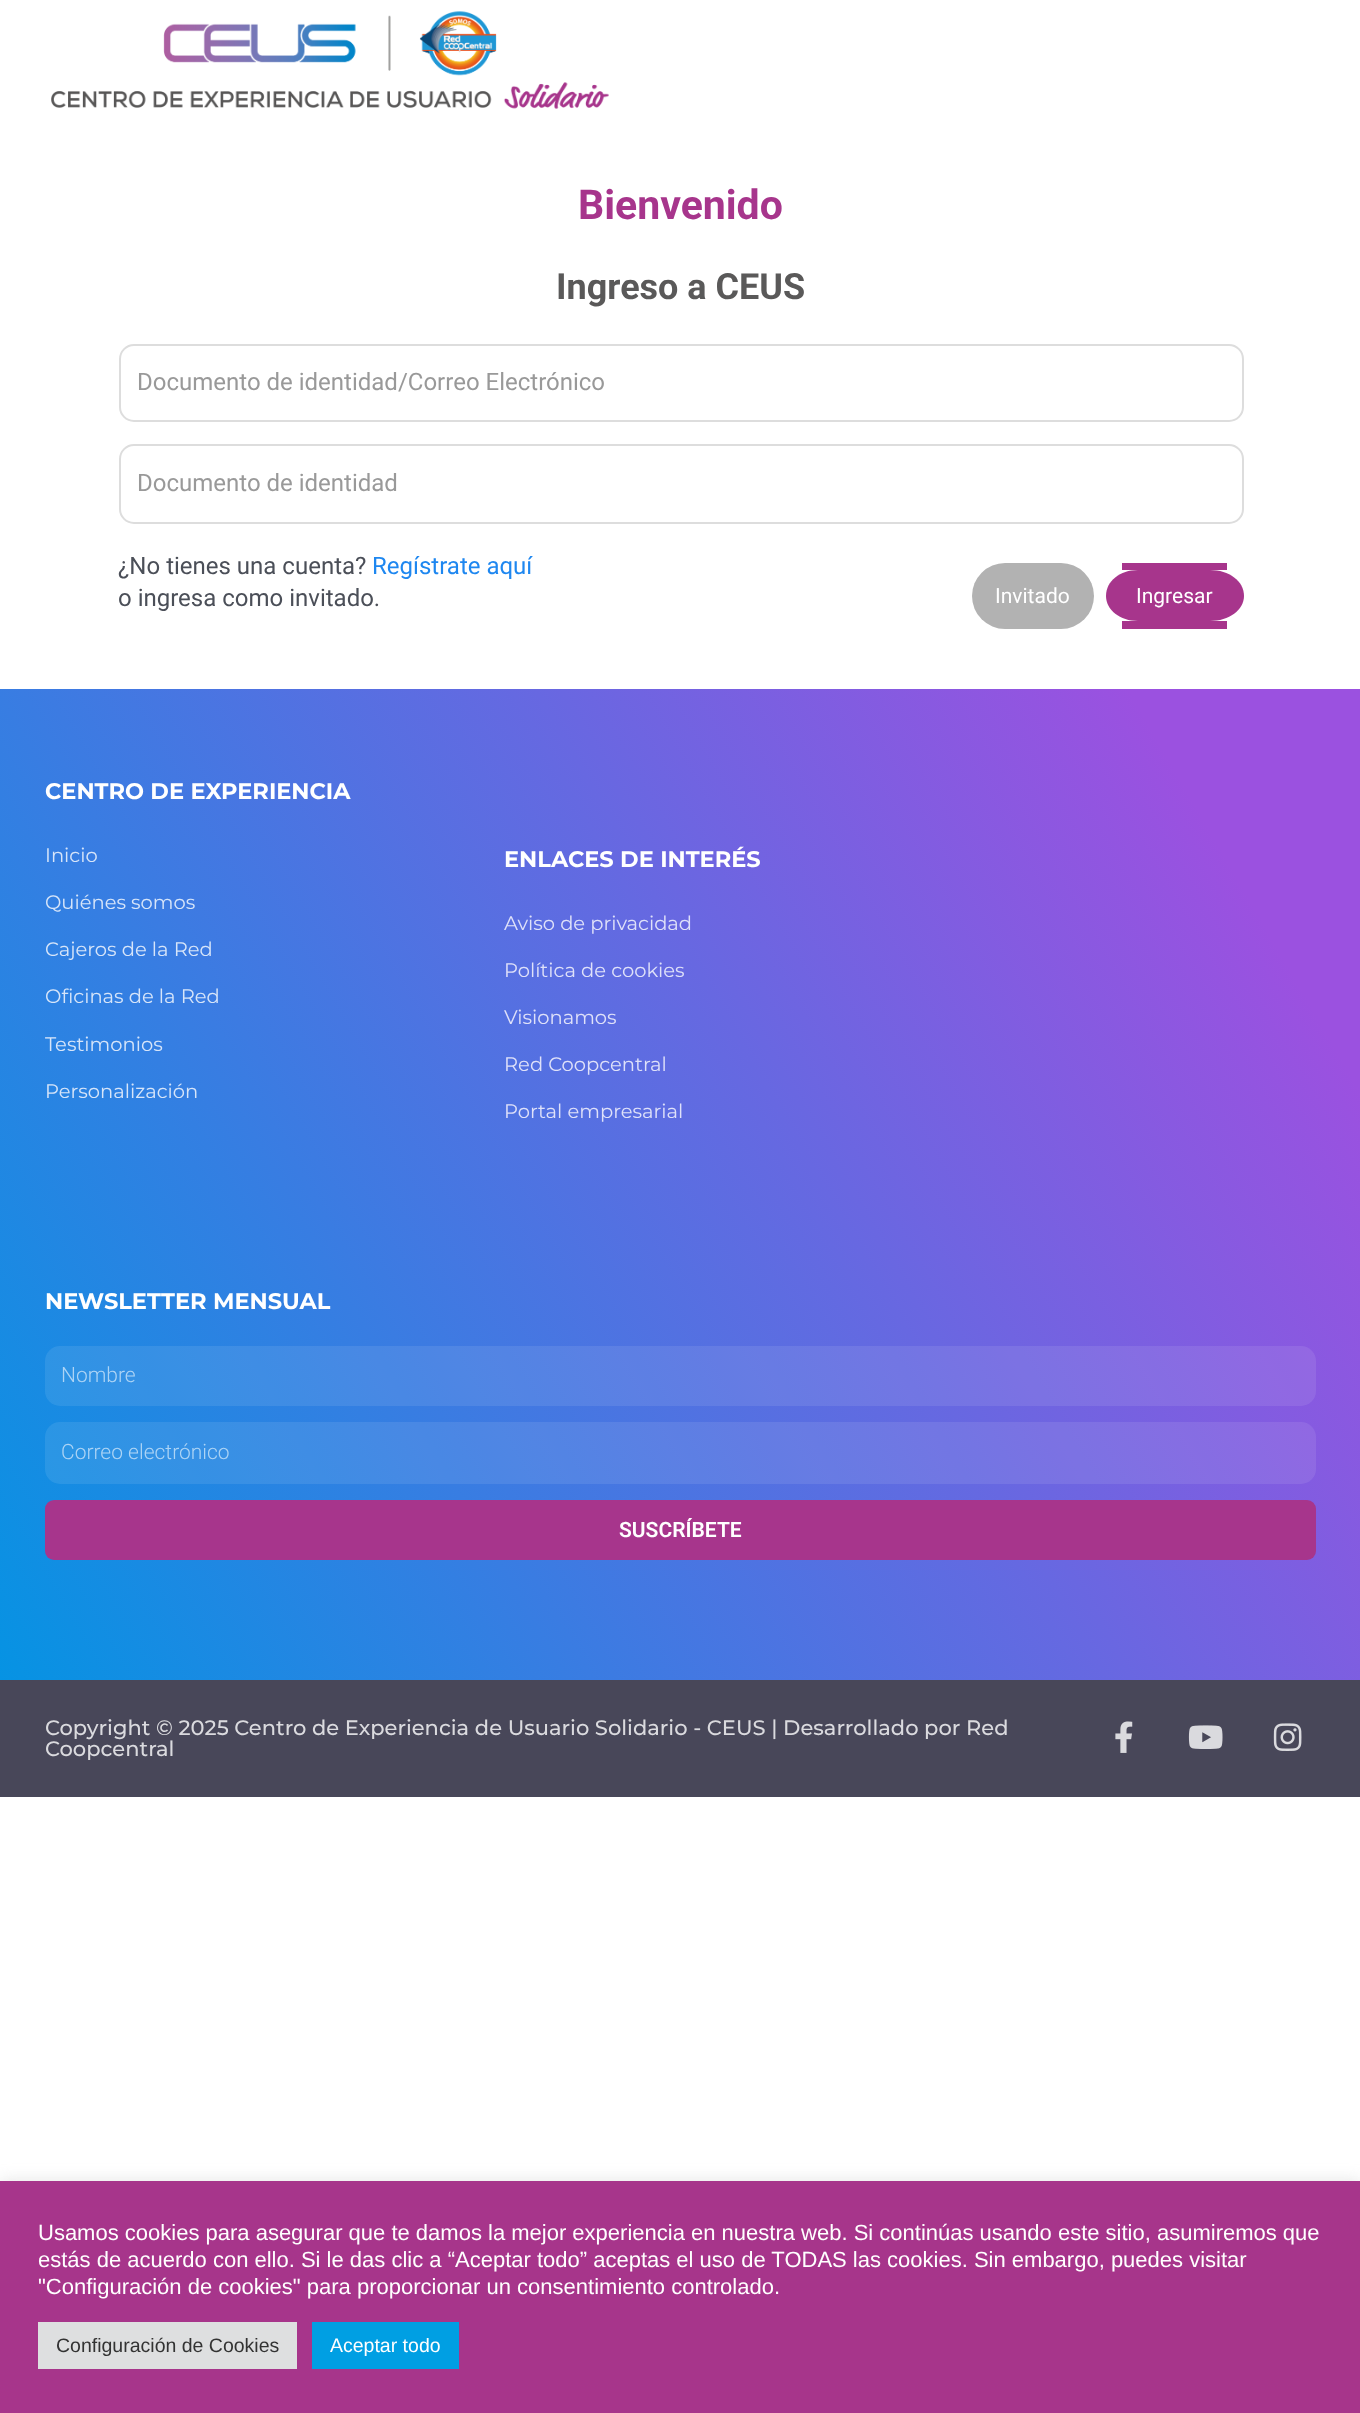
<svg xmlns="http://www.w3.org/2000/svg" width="1360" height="2413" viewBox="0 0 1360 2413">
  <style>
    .t1 { font: bold 41px Roboto; fill: #a7358c; }
    .t2 { font: bold 36px Roboto; fill: #5a5959; }
    .t3 { font: 24px Roboto; fill: #999; }
    .t4 { font: 24px Roboto; fill: #4b4f58; }
    .t5 { font: 24px Roboto; fill: #1e87f0; }
    .t6 { font: 21px Roboto; fill: #fff; }
    .t7 { font: bold 22.5px Montserrat; fill: #fff; }
    .t8 { font: 19.5px Montserrat; fill: #d7e5f9; }
    .t9 { font: 19.5px Montserrat; fill: #dfe1f9; }
    .t10 { font: 300 21px Roboto; fill: #add4f5; }
    .t11 { font: 600 21px Roboto; fill: #fff; }
    .t12 { font: 500 21px Montserrat; fill: #dadade; }
    .t13 { font: 22px Liberation Sans; fill: #fff; }
    .t14 { font: 19.5px Liberation Sans; fill: #333; }
    .t15 { font: 19.5px Liberation Sans; fill: #fff; }
  </style>
  <defs>
    <linearGradient id="g1" gradientUnits="userSpaceOnUse" x1="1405" y1="766" x2="-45" y2="1603"><stop offset="0.12" stop-color="#9b51e0"/><stop offset="1" stop-color="#0693e3"/></linearGradient>
  </defs>
  <rect width="100%" height="100%" fill="#fff"/>
  <image x="51" y="11" width="558" height="98" href="images/1.png"/>
  <text x="578" y="219" class="t1">Bienvenido</text>
  <text x="556" y="299" class="t2">Ingreso a CEUS</text>
  <rect x="120" y="345" width="1123" height="76" rx="14" fill="none" stroke="#ddd" stroke-width="2"/>
  <text x="137" y="390" class="t3">Documento de identidad/Correo Electrónico</text>
  <rect x="120" y="445" width="1123" height="78" rx="14" fill="none" stroke="#ddd" stroke-width="2"/>
  <text x="137" y="491" class="t3">Documento de identidad</text>
  <text x="118" y="574" class="t4">¿No tienes una cuenta?</text>
  <text x="372" y="574" class="t5">Regístrate aquí</text>
  <text x="118" y="606" class="t4">o ingresa como invitado.</text>
  <rect x="972" y="563" width="122" height="66" rx="33" fill="#b2b2b2"/>
  <text x="995" y="603" class="t6">Invitado</text>
  <path d="M1138 570H1210C1229 570 1244 581 1244 596C1244 610 1229 621 1210 621H1138C1120 621 1106 610 1106 596C1106 581 1120 570 1138 570Z" fill="#a7358c"/>
  <rect x="1122" y="563" width="105" height="7" fill="#a7358c"/>
  <rect x="1122" y="621" width="105" height="8" fill="#a7358c"/>
  <text x="1136" y="603" class="t6">Ingresar</text>
  <rect x="0" y="689" width="1360" height="991" fill="url(#g1)"/>
  <text x="45" y="799" class="t7">CENTRO DE EXPERIENCIA</text>
  <text x="45" y="862" class="t8">Inicio</text>
  <text x="45" y="909" class="t8">Quiénes somos</text>
  <text x="45" y="956" class="t8">Cajeros de la Red</text>
  <text x="45" y="1003" class="t8">Oficinas de la Red</text>
  <text x="45" y="1051" class="t8">Testimonios</text>
  <text x="45" y="1098" class="t8">Personalización</text>
  <text x="504" y="867" class="t7">ENLACES DE INTERÉS</text>
  <text x="504" y="930" class="t9">Aviso de privacidad</text>
  <text x="504" y="977" class="t9">Política de cookies</text>
  <text x="504" y="1024" class="t9">Visionamos</text>
  <text x="504" y="1071" class="t9">Red Coopcentral</text>
  <text x="504" y="1118" class="t9">Portal empresarial</text>
  <text x="45" y="1309" class="t7">NEWSLETTER MENSUAL</text>
  <rect x="45" y="1346" width="1271" height="60" rx="15" fill="#ffffff17"/>
  <text x="61" y="1382" class="t10">Nombre</text>
  <rect x="45" y="1422" width="1271" height="62" rx="15" fill="#ffffff17"/>
  <text x="61" y="1459" class="t10">Correo electrónico</text>
  <rect x="45" y="1500" width="1271" height="60" rx="9" fill="#a7358c"/>
  <text x="619" y="1537" class="t11">SUSCRÍBETE</text>
  <rect x="0" y="1680" width="1360" height="117" fill="#484759"/>
  <text x="45" y="1735" class="t12">Copyright © 2025 Centro de Experiencia de Usuario Solidario - CEUS | Desarrollado por Red</text>
  <text x="45" y="1756" class="t12">Coopcentral</text>
  <image x="1115" y="1721" width="18" height="32" href="images/2.png"/>
  <image x="1188" y="1725" width="35" height="24" href="images/3.png"/>
  <image x="1273" y="1723" width="29" height="28" href="images/4.png"/>
  <rect x="0" y="2180" width="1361" height="232" fill="#acabab4d" filter="blur(7.5px)"/>
  <rect x="0" y="2181" width="1360" height="232" fill="#a7358b"/>
  <text x="38" y="2240" class="t13">Usamos cookies para asegurar que te damos la mejor experiencia en nuestra web. Si continúas usando este sitio, asumiremos que</text>
  <text x="38" y="2267" class="t13">estás de acuerdo con ello. Si le das clic a “Aceptar todo” aceptas el uso de TODAS las cookies. Sin embargo, puedes visitar</text>
  <text x="38" y="2294" class="t13">"Configuración de cookies" para proporcionar un consentimiento controlado.</text>
  <rect x="38" y="2322" width="259" height="47" fill="#dedfe0"/>
  <text x="56" y="2352" class="t14">Configuración de Cookies</text>
  <rect x="312" y="2322" width="147" height="47" fill="#009fe3"/>
  <text x="330" y="2352" class="t15">Aceptar todo</text>
</svg>
